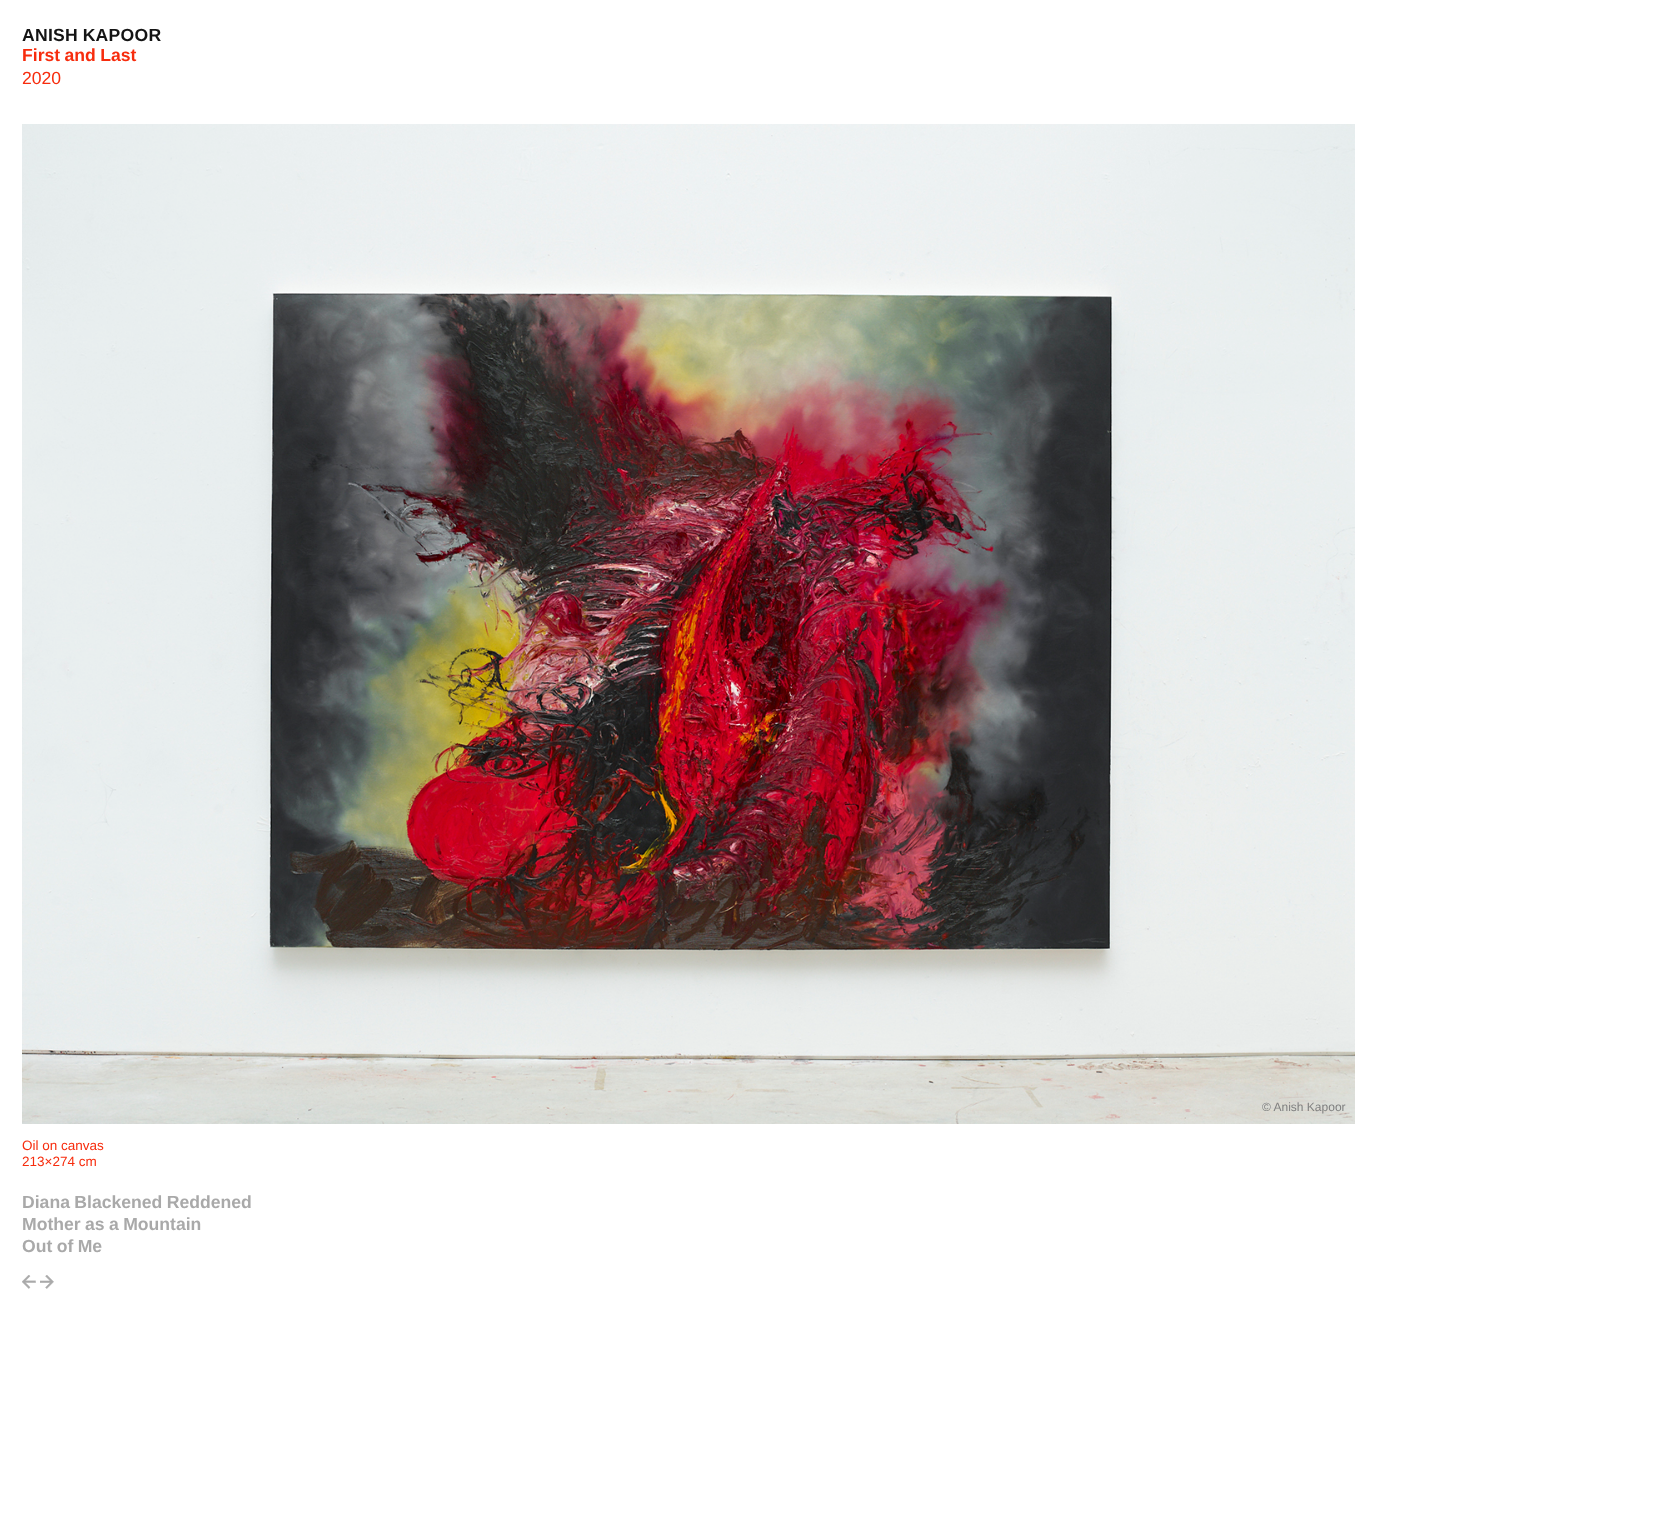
<svg xmlns="http://www.w3.org/2000/svg" width="1662" height="1515" viewBox="0 0 1662 1515">
  <style>
    .t1 { font: bold 17.6px Liberation Sans; letter-spacing: 0.25px; fill: #141414; }
    .t2 { font: bold 17.6px Liberation Sans; fill: #f72c0d; }
    .t3 { font: 17.6px Liberation Sans; fill: #f72c0d; }
    .t4 { font: 12px Liberation Sans; fill: #808080; }
    .t5 { font: 13.5px Liberation Sans; fill: #f72c0d; }
    .t6 { font: bold 17.6px Liberation Sans; fill: #a9a9a9; }
  </style>
  <rect width="100%" height="100%" fill="#fff"/>
  <text x="22" y="41" word-spacing="-0.5" class="t1">ANISH KAPOOR</text>
  <text x="22" y="61" word-spacing="-0.5" class="t2">First and Last</text>
  <text x="22" y="84" class="t3">2020</text>
  <image x="22" y="124" width="1333" height="1000" href="images/1.png"/>
  <text x="1262" y="1111" class="t4">© Anish Kapoor</text>
  <text x="22" y="1150" class="t5">Oil on canvas</text>
  <text x="22" y="1166" class="t5">213×274 cm</text>
  <text x="22" y="1208" word-spacing="-0.5" class="t6">Diana Blackened Reddened</text>
  <text x="22" y="1230" word-spacing="-0.5" class="t6">Mother as a Mountain</text>
  <text x="22" y="1252" word-spacing="-0.5" class="t6">Out of Me</text>
  <image x="22" y="1275" width="14" height="14" href="images/2.png"/>
  <image x="40" y="1275" width="14" height="14" href="images/3.png"/>
</svg>
